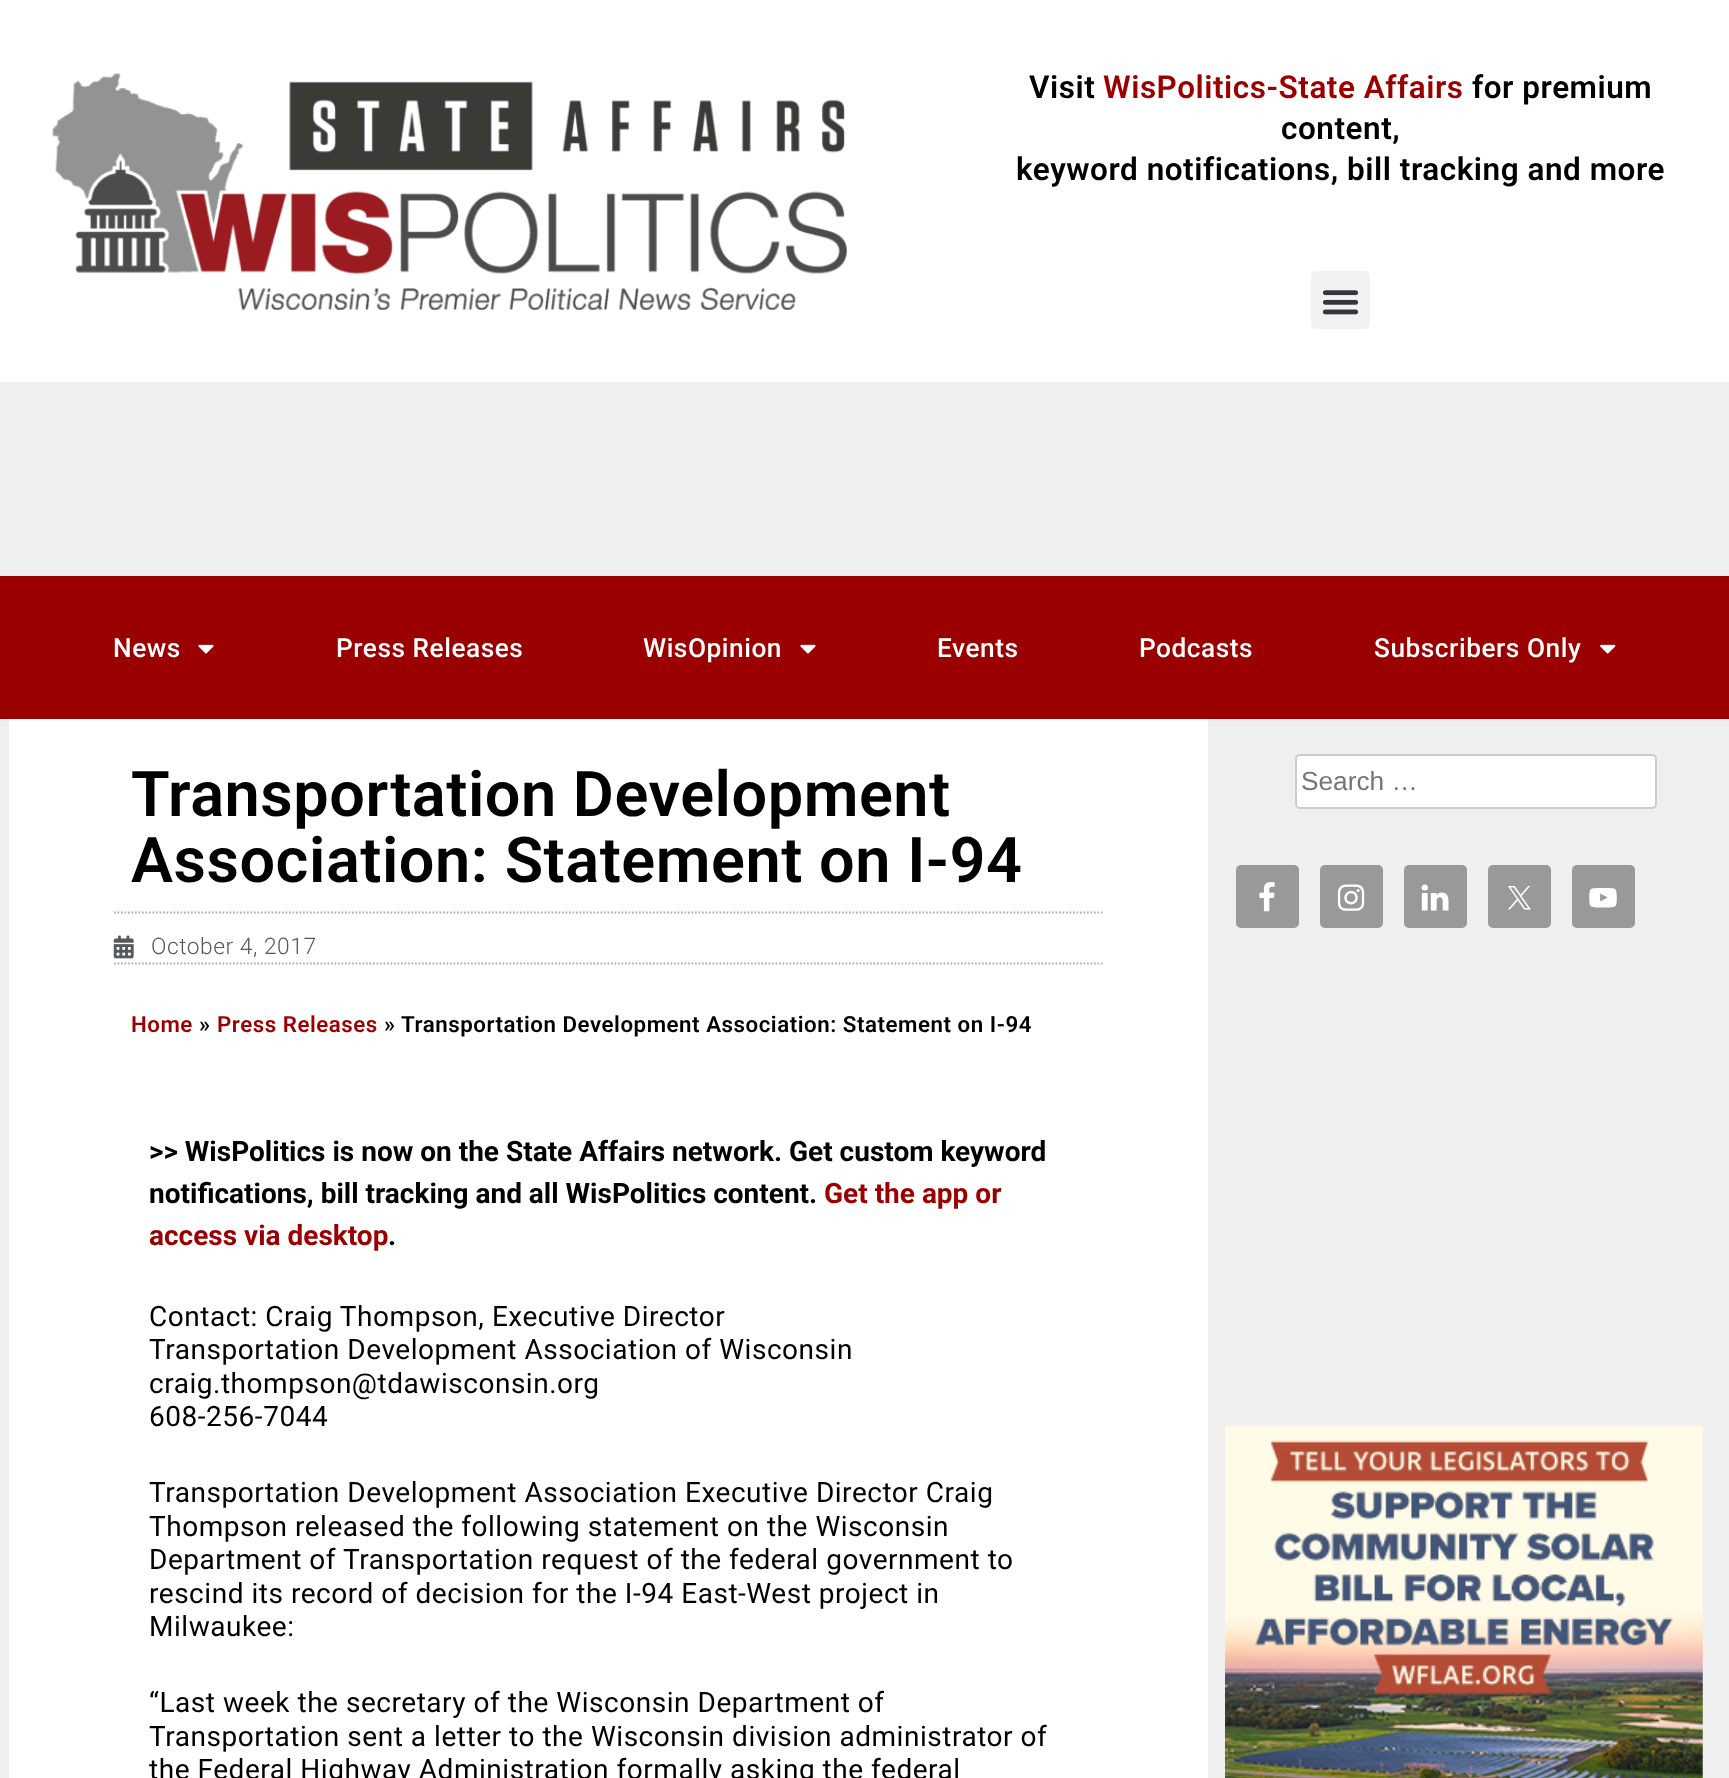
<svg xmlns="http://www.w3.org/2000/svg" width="1729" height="1778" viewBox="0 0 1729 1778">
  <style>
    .t1 { font: 600 31.5px Roboto; letter-spacing: 0.53px; fill: #000; }
    .t2 { font: 600 31.5px Roboto; letter-spacing: 0.53px; fill: #9b0000; }
    .t3 { font: 500 26.25px Roboto; letter-spacing: 0.53px; fill: #fff; }
    .t4 { font: 600 63px Roboto; letter-spacing: 0.53px; fill: #000; }
    .t5 { font: 300 22.75px Roboto; letter-spacing: 0.53px; fill: #54595f; }
    .t6 { font: 600 22.3px Roboto; letter-spacing: 0.53px; fill: #9b0000; }
    .t7 { font: 600 22.3px Roboto; letter-spacing: 0.53px; fill: #000; }
    .t8 { font: bold 28px Roboto; fill: #000; }
    .t9 { font: bold 28px Roboto; fill: #9b0000; }
    .t10 { font: 28px Roboto; letter-spacing: 0.53px; fill: #000; }
    .t11 { font: 26.25px Liberation Sans; fill: #757575; }
  </style>
  <rect width="100%" height="100%" fill="#efefef"/>
  <rect x="0" y="0" width="1729" height="382" fill="#fff"/>
  <image x="52" y="73" width="795" height="237" href="images/1.png"/>
  <text x="1029" y="98" class="t1">Visit</text>
  <text x="1103" y="98" class="t2">WisPolitics-State Affairs</text>
  <text x="1472" y="98" class="t1">for premium</text>
  <text x="1281" y="139" class="t1">content,</text>
  <text x="1016" y="180" class="t1">keyword notifications, bill tracking and more</text>
  <rect x="1311" y="271" width="59" height="58" rx="5" fill="#f2f2f2"/>
  <image x="1322" y="290" width="37" height="25" href="images/2.png"/>
  <rect x="0" y="576" width="1729" height="143" fill="#9b0000"/>
  <text x="113" y="657" class="t3">News</text>
  <image x="198" y="644" width="16" height="10" href="images/3.png"/>
  <text x="336" y="657" class="t3">Press Releases</text>
  <text x="643" y="657" class="t3">WisOpinion</text>
  <image x="800" y="644" width="16" height="10" href="images/3.png"/>
  <text x="937" y="657" class="t3">Events</text>
  <text x="1139" y="657" class="t3">Podcasts</text>
  <text x="1374" y="657" class="t3">Subscribers Only</text>
  <image x="1600" y="644" width="16" height="10" href="images/4.png"/>
  <rect x="9" y="719" width="1199" height="1059" fill="#fff"/>
  <text x="131" y="816" class="t4">Transportation Development</text>
  <text x="131" y="882" class="t4">Association: Statement on I-94</text>
  <path d="M114 912.5H1102.5" fill="none" stroke="#afafaf" stroke-width="1.8" stroke-dasharray="1.75 1.75"/>
  <path d="M114 963.5H1102.5" fill="none" stroke="#afafaf" stroke-width="1.8" stroke-dasharray="1.75 1.75"/>
  <image x="113" y="935" width="21" height="24" href="images/5.png"/>
  <text x="151" y="954" class="t5">October 4, 2017</text>
  <text x="131" y="1032" class="t6">Home</text>
  <text x="199" y="1032" class="t7">»</text>
  <text x="217" y="1032" class="t6">Press Releases</text>
  <text x="384" y="1032" class="t7">» Transportation Development Association: Statement on I-94</text>
  <text x="149" y="1161" class="t8">&gt;&gt; WisPolitics is now on the State Affairs network. Get custom keyword</text>
  <text x="149" y="1203" class="t8">notifications, bill tracking and all WisPolitics content.</text>
  <text x="824" y="1203" class="t9">Get the app or</text>
  <text x="149" y="1245" class="t9">access via desktop</text>
  <text x="388" y="1245" class="t8">.</text>
  <text x="149" y="1326" class="t10">Contact: Craig Thompson, Executive Director</text>
  <text x="149" y="1359" class="t10">Transportation Development Association of Wisconsin</text>
  <text x="149" y="1393" class="t10">craig.thompson@tdawisconsin.org</text>
  <text x="149" y="1426" class="t10">608-256-7044</text>
  <text x="149" y="1502" class="t10">Transportation Development Association Executive Director Craig</text>
  <text x="149" y="1536" class="t10">Thompson released the following statement on the Wisconsin</text>
  <text x="149" y="1569" class="t10">Department of Transportation request of the federal government to</text>
  <text x="149" y="1603" class="t10">rescind its record of decision for the I-94 East-West project in</text>
  <text x="149" y="1636" class="t10">Milwaukee:</text>
  <text x="149" y="1712" class="t10">“Last week the secretary of the Wisconsin Department of</text>
  <text x="149" y="1746" class="t10">Transportation sent a letter to the Wisconsin division administrator of</text>
  <text x="149" y="1779" class="t10">the Federal Highway Administration formally asking the federal</text>
  <rect x="1296" y="755" width="360" height="53" rx="4" fill="#fff" stroke="#ccc" stroke-width="2"/>
  <text x="1301" y="790" class="t11">Search …</text>
  <rect x="1236" y="865" width="63" height="63" rx="5" fill="#999"/>
  <image x="1259" y="882" width="16" height="30" href="images/6.png"/>
  <rect x="1320" y="865" width="63" height="63" rx="5" fill="#999"/>
  <image x="1337" y="884" width="28" height="27" href="images/7.png"/>
  <rect x="1404" y="865" width="63" height="63" rx="5" fill="#999"/>
  <image x="1421" y="884" width="28" height="27" href="images/8.png"/>
  <rect x="1488" y="865" width="63" height="63" rx="5" fill="#999"/>
  <image x="1508" y="886" width="23" height="24" href="images/9.png"/>
  <rect x="1572" y="865" width="63" height="63" rx="5" fill="#999"/>
  <image x="1589" y="888" width="28" height="20" href="images/10.png"/>
  <image x="1225" y="1426" width="478" height="352" href="images/11.png"/>
</svg>
